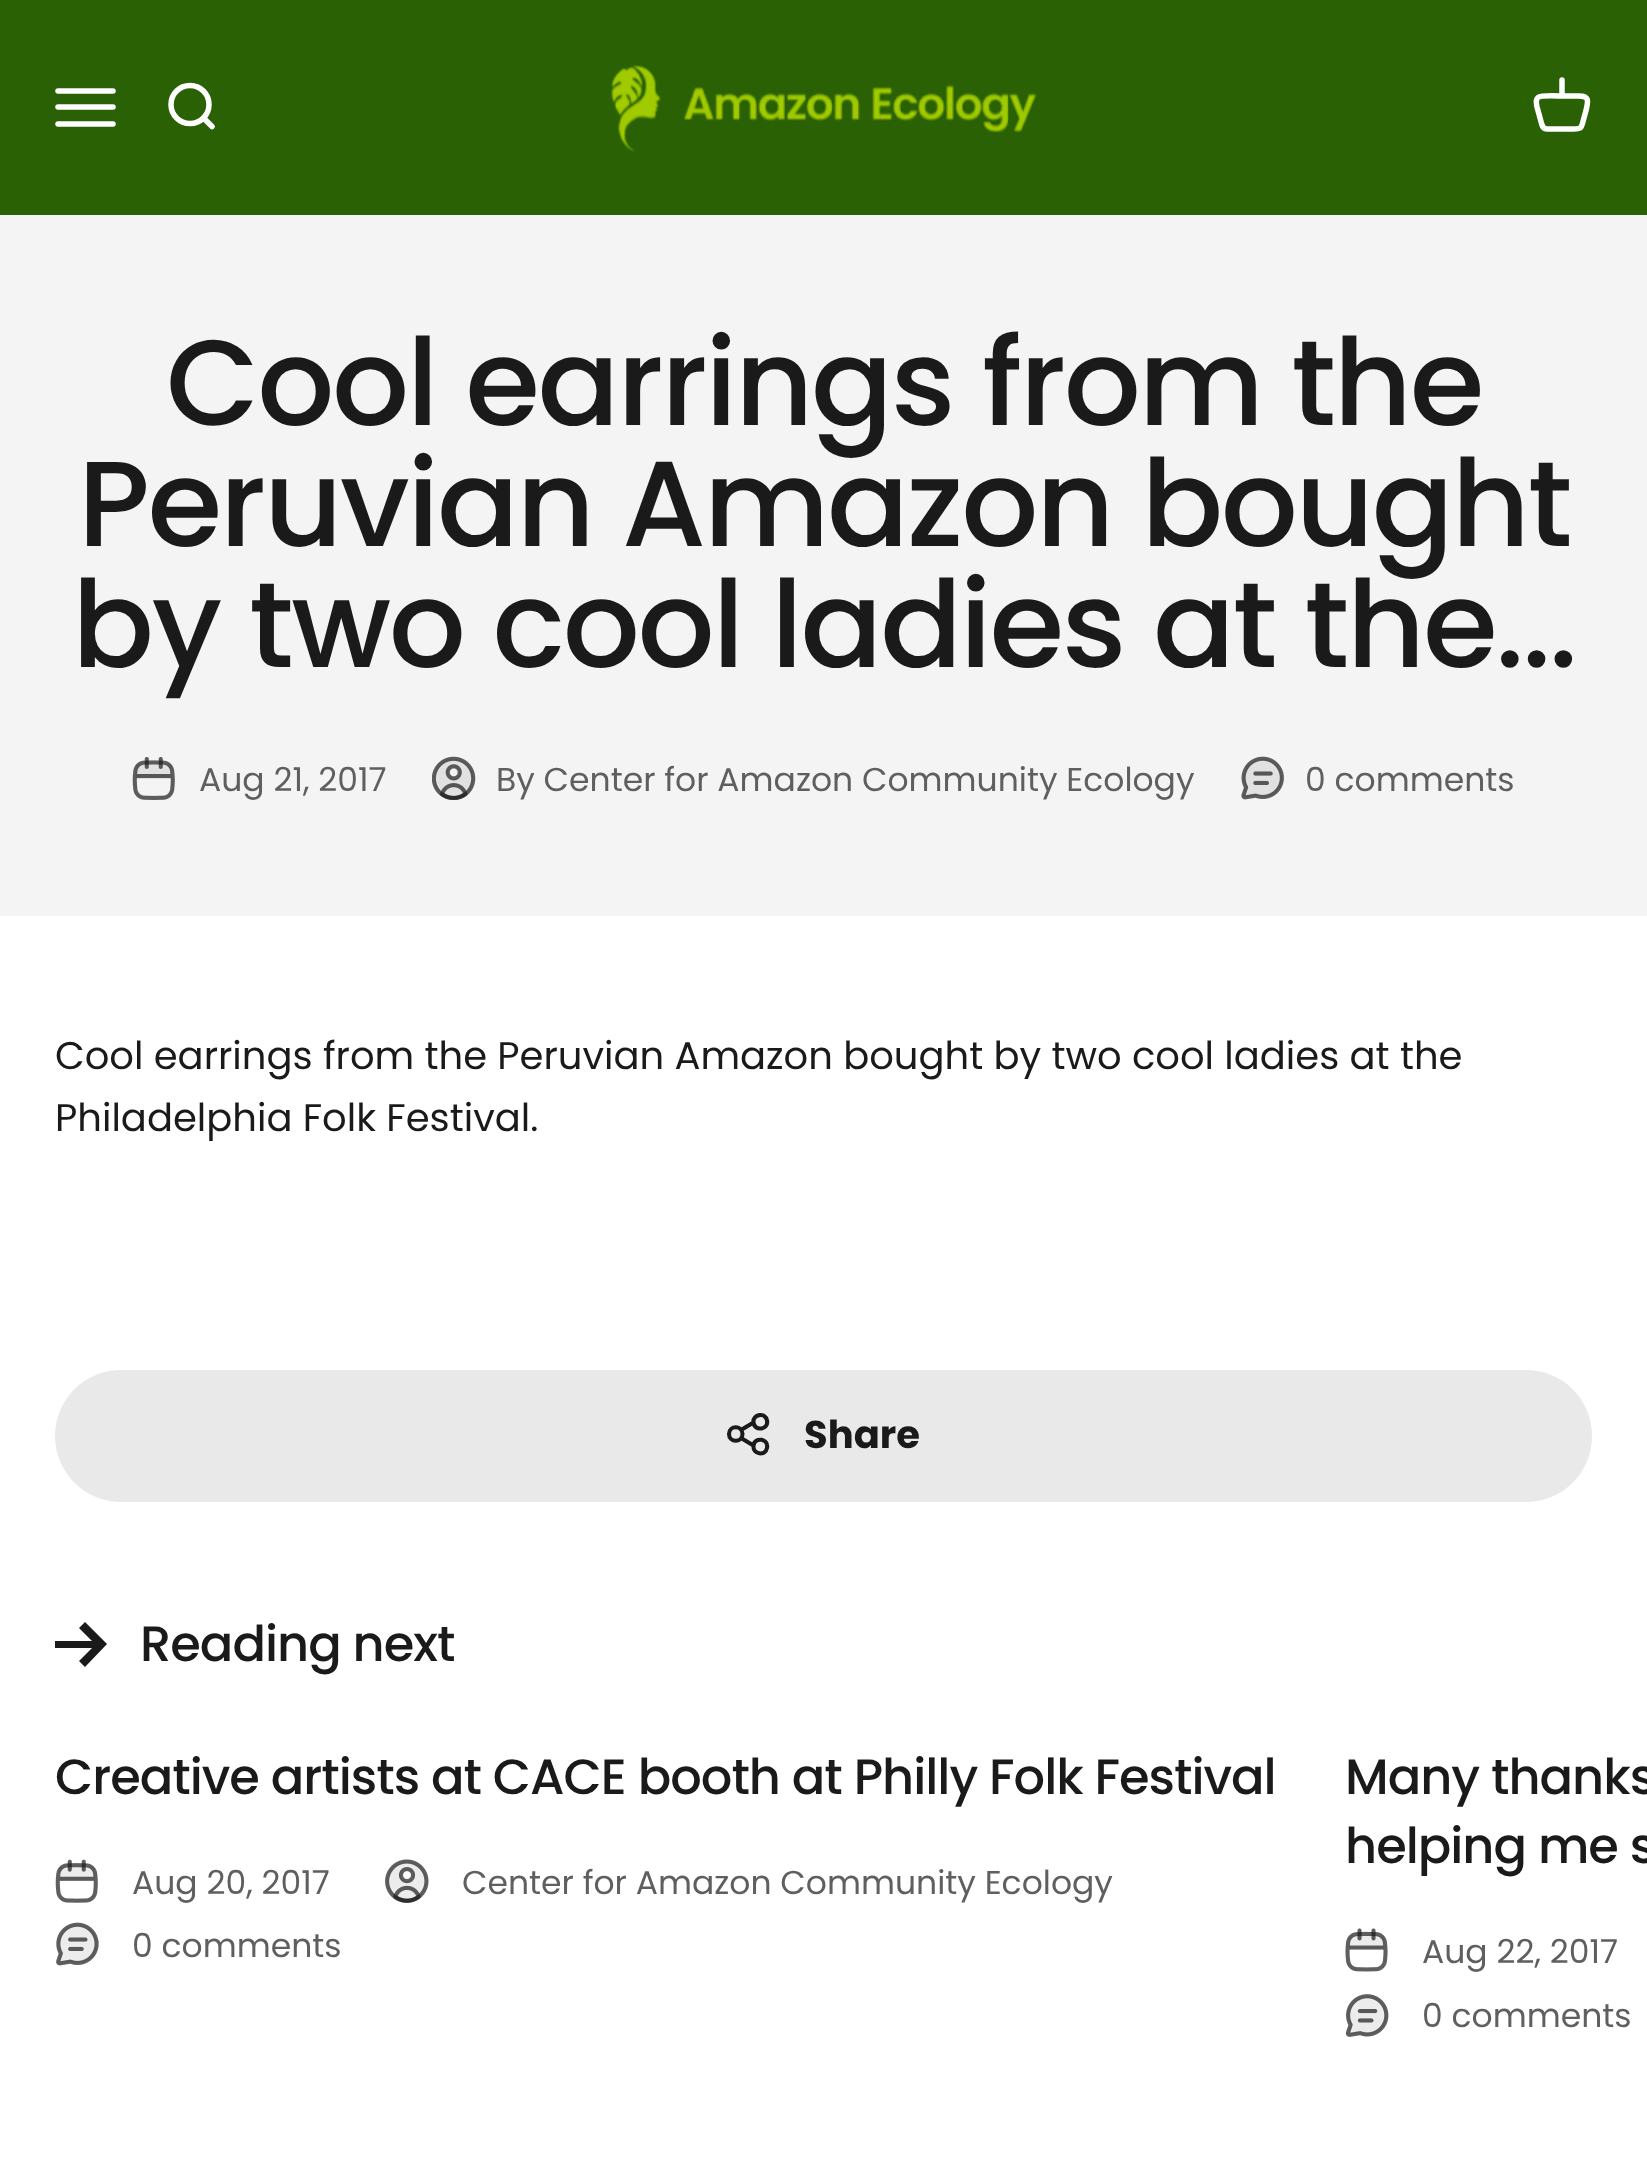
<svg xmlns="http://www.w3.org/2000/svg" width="1647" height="2174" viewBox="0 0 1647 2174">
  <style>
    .t1 { font: 500 121px Poppins; letter-spacing: -2.4px; fill: #1a1a1a; }
    .t2 { font: 33px Poppins; fill: #5f5f5f; }
    .t3 { font: 38.5px Poppins; fill: #1a1a1a; }
    .t4 { font: bold 38.5px Poppins; fill: #1a1a1a; }
    .t5 { font: 500 49.5px Poppins; letter-spacing: -1px; fill: #1a1a1a; }
  </style>
  <rect width="100%" height="100%" fill="#fff"/>
  <rect x="0" y="0" width="1647" height="215" fill="#296104"/>
  <path d="M58 91H113M58 107H113M58 124H113" fill="none" stroke="#fff" stroke-width="5.5" stroke-linecap="round"/>
  <circle cx="190" cy="104.5" r="19" fill="none" stroke="#fff" stroke-width="5.5"/>
  <path d="M203.5 118L212 126.5" fill="none" stroke="#fff" stroke-width="5.5" stroke-linecap="round" stroke-linejoin="round"/>
  <image x="611" y="65" width="426" height="88" href="images/1.png"/>
  <path d="M1562 96C1557.5 96 1541 95 1538 97.5C1535 100 1536.5 103.5 1537 107L1541 121.5C1542 125 1542.5 129 1547 129H1572C1580 129 1581 129.5 1583 121.5L1586 110.5C1588 101.5 1590 96 1579 96ZM1562 96V80" fill="none" stroke="#fff" stroke-width="5.5" stroke-linecap="round" stroke-linejoin="round"/>
  <rect x="0" y="215" width="1647" height="701" fill="#f4f4f4"/>
  <text x="166" y="425" class="t1">Cool earrings from the</text>
  <text x="78" y="546" class="t1">Peruvian Amazon bought</text>
  <text x="72" y="667" class="t1">by two cool ladies at the...</text>
  <image x="132" y="757" width="43" height="43" href="images/2.png"/>
  <text x="199" y="791" class="t2">Aug 21, 2017</text>
  <image x="432" y="756" width="44" height="44" href="images/3.png"/>
  <text x="496" y="791" class="t2">By Center for Amazon Community Ecology</text>
  <image x="1241" y="756" width="43" height="44" href="images/4.png"/>
  <text x="1305" y="791" class="t2">0 comments</text>
  <text x="55" y="1069" class="t3">Cool earrings from the Peruvian Amazon bought by two cool ladies at the</text>
  <text x="55" y="1131" class="t3">Philadelphia Folk Festival.</text>
  <rect x="55" y="1370" width="1537" height="132" rx="66" fill="#e9e9e9"/>
  <path d="M741 1430L753.5 1422.5M741 1438L753.5 1445.5M753.5 1422.5C754.5 1432 769 1429.5 767 1420.5C765.5 1412 752.5 1414 753.5 1422.5ZM753.5 1445.5C752.5 1454.5 765.5 1456.5 767 1448C769 1438.5 754.5 1436.5 753.5 1445.5ZM742.5 1434C742.5 1443 729 1443 729 1434C729 1425 742.5 1425 742.5 1434Z" fill="none" stroke="#1a1a1a" stroke-width="4.1" stroke-linejoin="round"/>
  <text x="804" y="1448" class="t4">Share</text>
  <path d="M85 1622L107 1644L85 1667L79 1661L92 1648H55V1641H92L79 1628Z" fill="#1a1a1a" fill-rule="evenodd"/>
  <text x="140" y="1661" class="t5">Reading next</text>
  <text x="55" y="1794" class="t5">Creative artists at CACE booth at Philly Folk Festival</text>
  <image x="55" y="1859" width="43" height="44" href="images/5.png"/>
  <text x="132" y="1894" class="t2">Aug 20, 2017</text>
  <image x="385" y="1859" width="44" height="44" href="images/6.png"/>
  <text x="462" y="1894" class="t2">Center for Amazon Community Ecology</text>
  <image x="56" y="1922" width="43" height="44" href="images/7.png"/>
  <text x="132" y="1957" class="t2">0 comments</text>
  <text x="1345" y="1794" class="t5">Many thanks</text>
  <text x="1345" y="1863" class="t5">helping me s</text>
  <image x="1345" y="1928" width="43" height="44" href="images/8.png"/>
  <text x="1422" y="1963" class="t2">Aug 22, 2017</text>
  <image x="1345" y="1994" width="44" height="43" href="images/9.png"/>
  <text x="1422" y="2027" class="t2">0 comments</text>
</svg>
